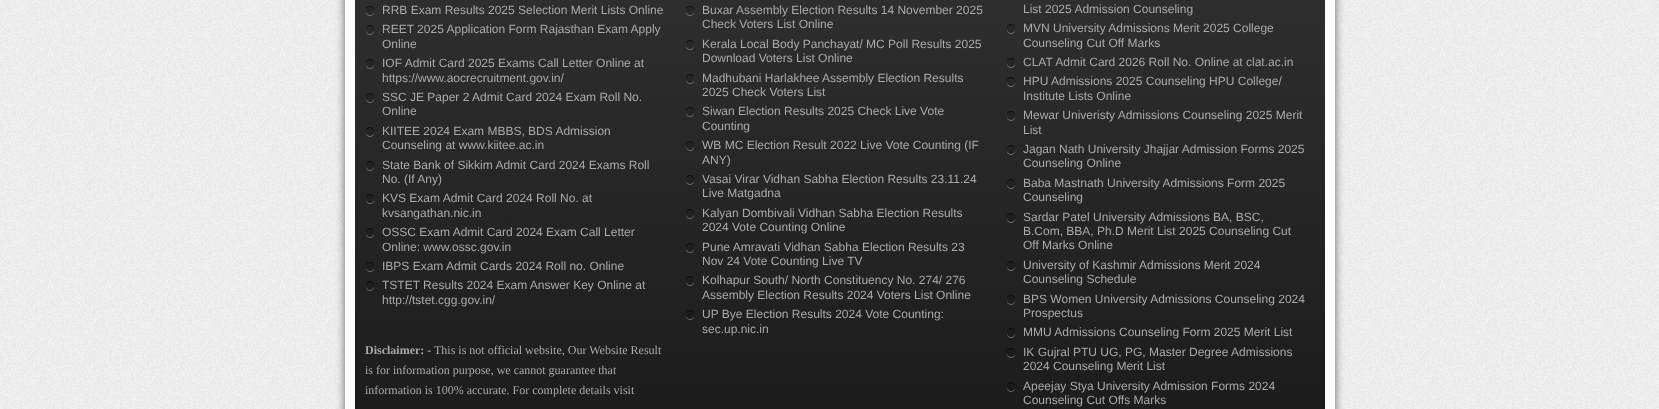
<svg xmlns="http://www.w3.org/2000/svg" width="1659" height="409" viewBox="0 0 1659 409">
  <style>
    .t1 { font: 12px Liberation Sans; fill: #aaa; }
    .t2 { font: bold 12px Liberation Serif; fill: #aaa; }
    .t3 { font: 12px Liberation Serif; fill: #aaa; }
  </style>
  <defs>
    <linearGradient id="g1" gradientUnits="userSpaceOnUse" x1="840" y1="-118" x2="840" y2="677"><stop offset="0" stop-color="#333"/><stop offset="1" stop-color="#111"/></linearGradient>
  </defs>
  <rect width="100%" height="100%" fill="#fff"/>
  <image x="0" y="0" width="1659" height="409" href="images/1.png"/>
  <rect x="345" y="-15" width="990" height="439" fill="#666" filter="blur(5px)"/>
  <rect x="345" y="0" width="990" height="409" fill="#fff"/>
  <rect x="355" y="0" width="970" height="409" fill="url(#g1)"/>
  <image x="366" y="6" width="8" height="10" href="images/2.png"/>
  <text x="382" y="14" class="t1">RRB Exam Results 2025 Selection Merit Lists Online</text>
  <image x="366" y="25" width="8" height="10" href="images/3.png"/>
  <text x="382" y="33" class="t1">REET 2025 Application Form Rajasthan Exam Apply</text>
  <text x="382" y="48" class="t1">Online</text>
  <image x="366" y="59" width="8" height="10" href="images/4.png"/>
  <text x="382" y="67" class="t1">IOF Admit Card 2025 Exams Call Letter Online at</text>
  <text x="382" y="82" class="t1">https://www.aocrecruitment.gov.in/</text>
  <image x="366" y="93" width="8" height="10" href="images/5.png"/>
  <text x="382" y="101" class="t1">SSC JE Paper 2 Admit Card 2024 Exam Roll No.</text>
  <text x="382" y="115" class="t1">Online</text>
  <image x="366" y="127" width="8" height="10" href="images/6.png"/>
  <text x="382" y="135" class="t1">KIITEE 2024 Exam MBBS, BDS Admission</text>
  <text x="382" y="149" class="t1">Counseling at www.kiitee.ac.in</text>
  <image x="366" y="161" width="8" height="10" href="images/7.png"/>
  <text x="382" y="169" class="t1">State Bank of Sikkim Admit Card 2024 Exams Roll</text>
  <text x="382" y="183" class="t1">No. (If Any)</text>
  <image x="366" y="194" width="8" height="10" href="images/8.png"/>
  <text x="382" y="202" class="t1">KVS Exam Admit Card 2024 Roll No. at</text>
  <text x="382" y="217" class="t1">kvsangathan.nic.in</text>
  <image x="366" y="228" width="8" height="10" href="images/9.png"/>
  <text x="382" y="236" class="t1">OSSC Exam Admit Card 2024 Exam Call Letter</text>
  <text x="382" y="251" class="t1">Online: www.ossc.gov.in</text>
  <image x="366" y="262" width="8" height="10" href="images/10.png"/>
  <text x="382" y="270" class="t1">IBPS Exam Admit Cards 2024 Roll no. Online</text>
  <image x="366" y="281" width="8" height="10" href="images/11.png"/>
  <text x="382" y="289" class="t1">TSTET Results 2024 Exam Answer Key Online at</text>
  <text x="382" y="304" class="t1">http://tstet.cgg.gov.in/</text>
  <text x="365" y="354" class="t2">Disclaimer: -</text>
  <text x="434" y="354" class="t3">This is not official website, Our Website Result</text>
  <text x="365" y="374" class="t3">is for information purpose, we cannot guarantee that</text>
  <text x="365" y="394" class="t3">information is 100% accurate. For complete details visit</text>
  <image x="686" y="6" width="8" height="10" href="images/2.png"/>
  <text x="702" y="14" class="t1">Buxar Assembly Election Results 14 November 2025</text>
  <text x="702" y="28" class="t1">Check Voters List Online</text>
  <image x="686" y="40" width="8" height="10" href="images/12.png"/>
  <text x="702" y="48" class="t1">Kerala Local Body Panchayat/ MC Poll Results 2025</text>
  <text x="702" y="62" class="t1">Download Voters List Online</text>
  <image x="686" y="74" width="8" height="10" href="images/13.png"/>
  <text x="702" y="82" class="t1">Madhubani Harlakhee Assembly Election Results</text>
  <text x="702" y="96" class="t1">2025 Check Voters List</text>
  <image x="686" y="107" width="8" height="10" href="images/14.png"/>
  <text x="702" y="115" class="t1">Siwan Election Results 2025 Check Live Vote</text>
  <text x="702" y="130" class="t1">Counting</text>
  <image x="686" y="141" width="8" height="10" href="images/15.png"/>
  <text x="702" y="149" class="t1">WB MC Election Result 2022 Live Vote Counting (IF</text>
  <text x="702" y="164" class="t1">ANY)</text>
  <image x="686" y="175" width="8" height="10" href="images/16.png"/>
  <text x="702" y="183" class="t1">Vasai Virar Vidhan Sabha Election Results 23.11.24</text>
  <text x="702" y="197" class="t1">Live Matgadna</text>
  <image x="686" y="209" width="8" height="10" href="images/17.png"/>
  <text x="702" y="217" class="t1">Kalyan Dombivali Vidhan Sabha Election Results</text>
  <text x="702" y="231" class="t1">2024 Vote Counting Online</text>
  <image x="686" y="243" width="8" height="10" href="images/18.png"/>
  <text x="702" y="251" class="t1">Pune Amravati Vidhan Sabha Election Results 23</text>
  <text x="702" y="265" class="t1">Nov 24 Vote Counting Live TV</text>
  <image x="686" y="276" width="8" height="10" href="images/11.png"/>
  <text x="702" y="284" class="t1">Kolhapur South/ North Constituency No. 274/ 276</text>
  <text x="702" y="299" class="t1">Assembly Election Results 2024 Voters List Online</text>
  <image x="686" y="310" width="8" height="10" href="images/19.png"/>
  <text x="702" y="318" class="t1">UP Bye Election Results 2024 Vote Counting:</text>
  <text x="702" y="333" class="t1">sec.up.nic.in</text>
  <text x="1023" y="13" class="t1">List 2025 Admission Counseling</text>
  <image x="1007" y="24" width="8" height="10" href="images/20.png"/>
  <text x="1023" y="32" class="t1">MVN University Admissions Merit 2025 College</text>
  <text x="1023" y="47" class="t1">Counseling Cut Off Marks</text>
  <image x="1007" y="58" width="8" height="10" href="images/4.png"/>
  <text x="1023" y="66" class="t1">CLAT Admit Card 2026 Roll No. Online at clat.ac.in</text>
  <image x="1007" y="77" width="8" height="10" href="images/21.png"/>
  <text x="1023" y="85" class="t1">HPU Admissions 2025 Counseling HPU College/</text>
  <text x="1023" y="100" class="t1">Institute Lists Online</text>
  <image x="1007" y="111" width="8" height="10" href="images/14.png"/>
  <text x="1023" y="119" class="t1">Mewar Univeristy Admissions Counseling 2025 Merit</text>
  <text x="1023" y="134" class="t1">List</text>
  <image x="1007" y="145" width="8" height="10" href="images/22.png"/>
  <text x="1023" y="153" class="t1">Jagan Nath University Jhajjar Admission Forms 2025</text>
  <text x="1023" y="167" class="t1">Counseling Online</text>
  <image x="1007" y="179" width="8" height="10" href="images/16.png"/>
  <text x="1023" y="187" class="t1">Baba Mastnath University Admissions Form 2025</text>
  <text x="1023" y="201" class="t1">Counseling</text>
  <image x="1007" y="213" width="8" height="10" href="images/23.png"/>
  <text x="1023" y="221" class="t1">Sardar Patel University Admissions BA, BSC,</text>
  <text x="1023" y="235" class="t1">B.Com, BBA, Ph.D Merit List 2025 Counseling Cut</text>
  <text x="1023" y="249" class="t1">Off Marks Online</text>
  <image x="1007" y="261" width="8" height="10" href="images/24.png"/>
  <text x="1023" y="269" class="t1">University of Kashmir Admissions Merit 2024</text>
  <text x="1023" y="283" class="t1">Counseling Schedule</text>
  <image x="1007" y="295" width="8" height="10" href="images/25.png"/>
  <text x="1023" y="303" class="t1">BPS Women University Admissions Counseling 2024</text>
  <text x="1023" y="317" class="t1">Prospectus</text>
  <image x="1007" y="328" width="8" height="10" href="images/26.png"/>
  <text x="1023" y="336" class="t1">MMU Admissions Counseling Form 2025 Merit List</text>
  <image x="1007" y="348" width="8" height="10" href="images/27.png"/>
  <text x="1023" y="356" class="t1">IK Gujral PTU UG, PG, Master Degree Admissions</text>
  <text x="1023" y="370" class="t1">2024 Counseling Merit List</text>
  <image x="1007" y="382" width="8" height="10" href="images/28.png"/>
  <text x="1023" y="390" class="t1">Apeejay Stya University Admission Forms 2024</text>
  <text x="1023" y="404" class="t1">Counseling Cut Offs Marks</text>
</svg>
